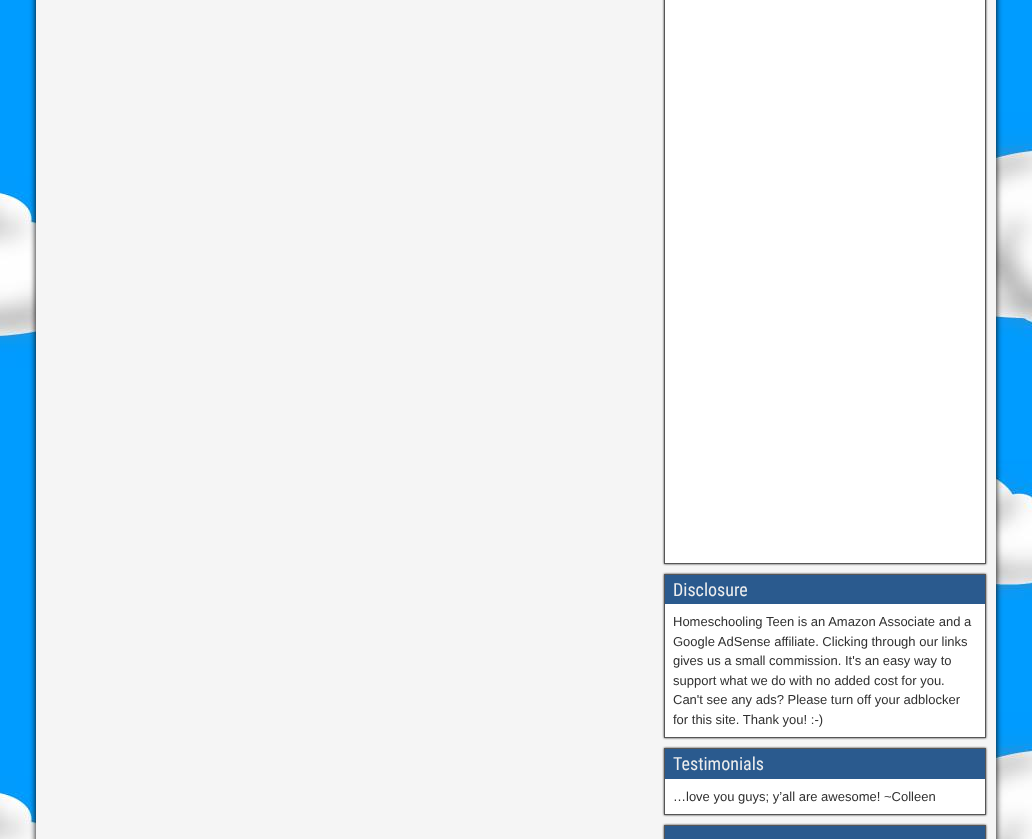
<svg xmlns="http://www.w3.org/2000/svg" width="1032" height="839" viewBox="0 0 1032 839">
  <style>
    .t1 { font: 18px Roboto Condensed; fill: #eee; }
    .t2 { font: 13px Liberation Sans; fill: #303030; }
  </style>
  <rect width="100%" height="100%" fill="#fff"/>
  <image x="0" y="0" width="1032" height="839" href="images/1.png"/>
  <rect x="36" y="-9" width="960" height="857" fill="#000" filter="blur(3px)"/>
  <rect x="36" y="0" width="960" height="839" fill="#f5f5f5"/>
  <rect x="664" y="-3" width="322" height="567" fill="#333" filter="blur(1px)"/>
  <rect x="664.5" y="-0.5" width="321" height="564" fill="#fff" stroke="#555"/>
  <rect x="664" y="574" width="322" height="164" fill="#333" filter="blur(1px)"/>
  <rect x="665" y="604" width="320" height="133" fill="#fff"/>
  <rect x="664.5" y="574.5" width="321" height="163" fill="none" stroke="#555"/>
  <rect x="665" y="575" width="320" height="29" fill="#2a5a8e"/>
  <text x="673" y="596" class="t1">Disclosure</text>
  <text x="673" y="626" class="t2">Homeschooling Teen is an Amazon Associate and a</text>
  <text x="673" y="646" class="t2">Google AdSense affiliate. Clicking through our links</text>
  <text x="673" y="665" class="t2">gives us a small commission. It's an easy way to</text>
  <text x="673" y="685" class="t2">support what we do with no added cost for you.</text>
  <text x="673" y="704" class="t2">Can't see any ads? Please turn off your adblocker</text>
  <text x="673" y="724" class="t2">for this site. Thank you! :-)</text>
  <rect x="664" y="748" width="322" height="67" fill="#333" filter="blur(1px)"/>
  <rect x="665" y="779" width="320" height="35" fill="#fff"/>
  <rect x="664.5" y="748.5" width="321" height="66" fill="none" stroke="#555"/>
  <rect x="665" y="749" width="320" height="30" fill="#2a5a8e"/>
  <text x="673" y="770" class="t1">Testimonials</text>
  <text x="673" y="801" class="t2">…love you guys; y’all are awesome! ~Colleen</text>
  <rect x="664" y="825" width="322" height="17" fill="#333" filter="blur(1px)"/>
  <rect x="664.5" y="825.5" width="321" height="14" fill="none" stroke="#555"/>
  <rect x="665" y="826" width="320" height="13" fill="#2a5a8e"/>
</svg>
